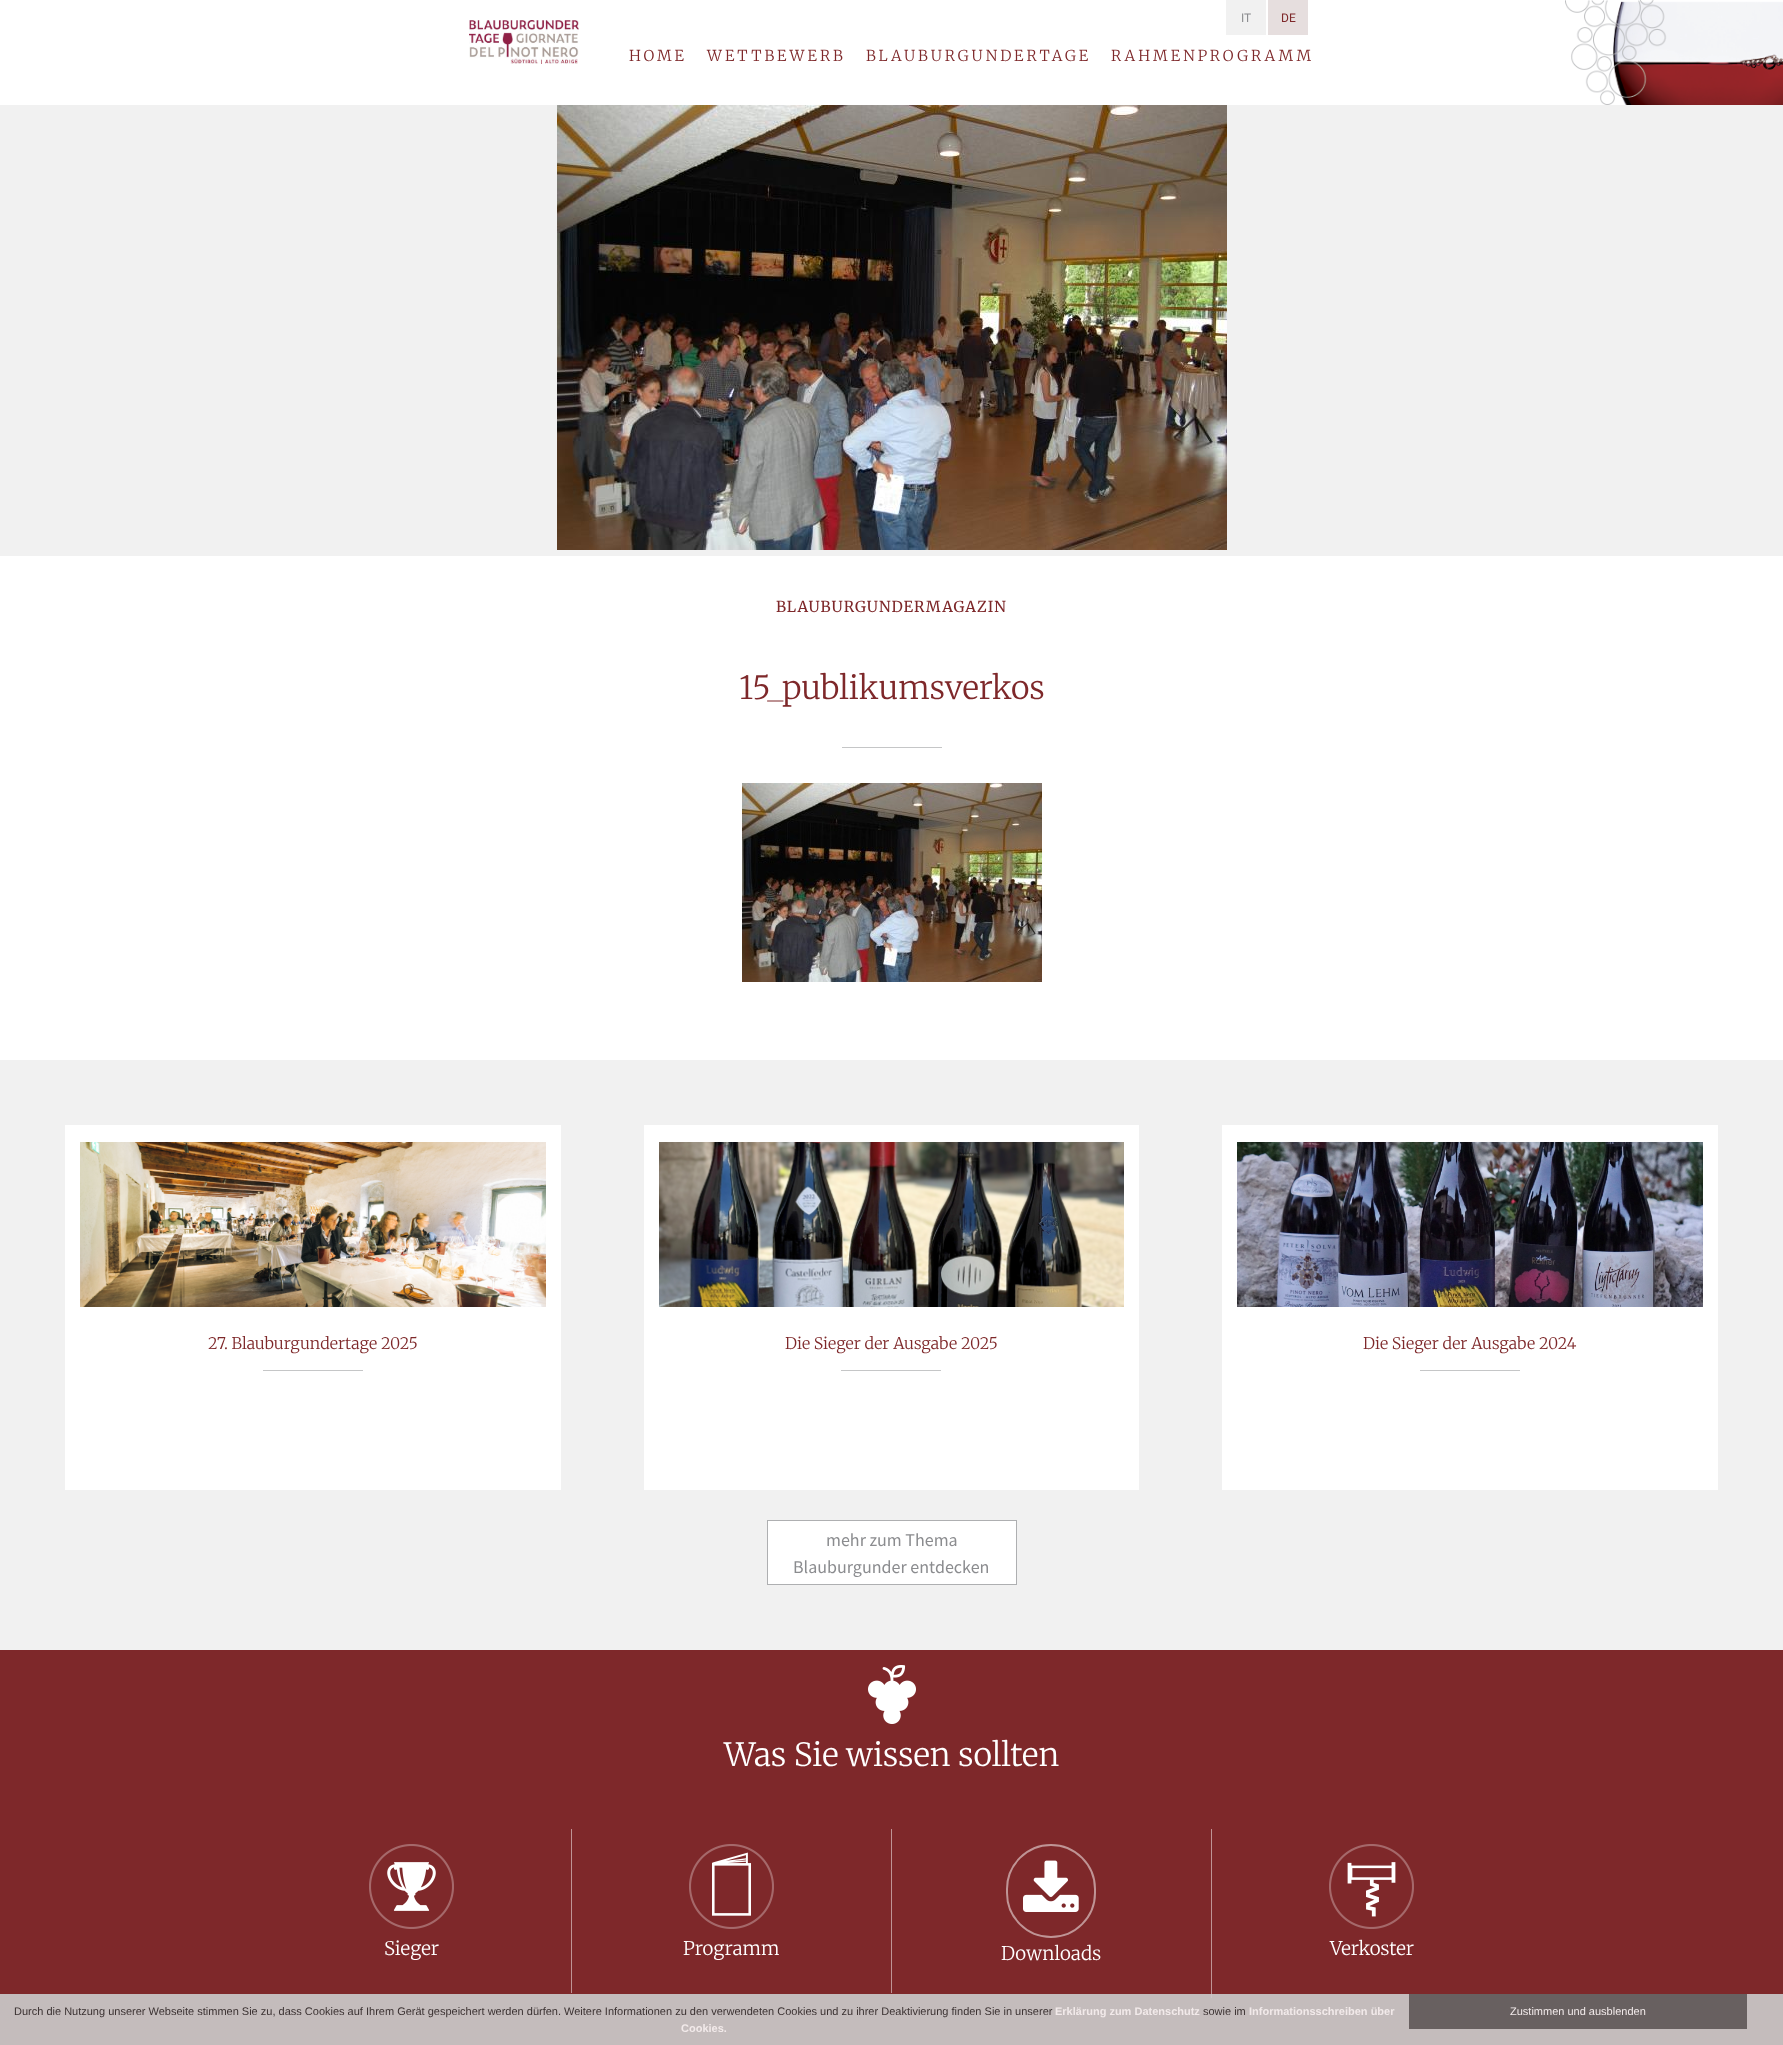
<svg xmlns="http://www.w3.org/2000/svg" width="1783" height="2045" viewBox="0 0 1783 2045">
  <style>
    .t1 { font: 12px Roboto; fill: #8b8c8f; }
    .t2 { font: 12px Roboto; fill: #7e282a; }
    .t3 { font: 300 15px Merriweather; letter-spacing: 3px; fill: #7e282a; }
    .t4 { font: 15px Merriweather; letter-spacing: 1px; fill: #7e282a; }
    .t5 { font: 300 32px Merriweather; fill: #7e282a; }
    .t6 { font: 300 16px Merriweather; fill: #7e282a; }
    .t7 { font: 18px Source Sans Pro; fill: #8b8c8f; }
    .t8 { font: 300 32px Merriweather; fill: #fff; }
    .t9 { font: 300 18.75px Merriweather; fill: #fff; }
    .t10 { font: 11px Liberation Sans; fill: #3b3232; }
    .t11 { font: bold 11px Liberation Sans; fill: #f2eaea; }
    .t12 { font: 11px Liberation Sans; fill: #f2eaea; }
  </style>
  <rect width="100%" height="100%" fill="#f1f1f1"/>
  <rect x="0" y="0" width="1783" height="105" fill="#fff"/>
  <image x="469" y="20" width="110" height="44" href="images/1.png"/>
  <rect x="1226" y="0" width="40" height="35" fill="#f1f1f1"/>
  <text x="1241" y="22" class="t1">IT</text>
  <rect x="1268" y="0" width="40" height="35" fill="#e6dede"/>
  <text x="1281" y="22" class="t2">DE</text>
  <text x="629" y="61" class="t3">HOME</text>
  <text x="707" y="61" class="t3">WETTBEWERB</text>
  <text x="866" y="61" class="t3">BLAUBURGUNDERTAGE</text>
  <text x="1111" y="61" class="t3">RAHMENPROGRAMM</text>
  <image x="1565" y="0" width="218" height="105" href="images/2.png"/>
  <image x="557" y="105" width="670" height="445" href="images/3.png"/>
  <rect x="0" y="556" width="1783" height="504" fill="#fff"/>
  <text x="776" y="612" class="t4">BLAUBURGUNDERMAGAZIN</text>
  <text x="739" y="699" class="t5">15_publikumsverkos</text>
  <rect x="842" y="747" width="100" height="1" fill="#c5c6c7"/>
  <image x="742" y="783" width="300" height="199" href="images/4.png"/>
  <rect x="65" y="1125" width="496" height="365" fill="#fff"/>
  <image x="80" y="1142" width="466" height="165" href="images/5.png"/>
  <text x="208" y="1349" class="t6">27. Blauburgundertage 2025</text>
  <rect x="263" y="1370" width="100" height="1" fill="#c5c6c7"/>
  <rect x="644" y="1125" width="495" height="365" fill="#fff"/>
  <image x="659" y="1142" width="465" height="165" href="images/6.png"/>
  <text x="785" y="1349" class="t6">Die Sieger der Ausgabe 2025</text>
  <rect x="841" y="1370" width="100" height="1" fill="#c5c6c7"/>
  <rect x="1222" y="1125" width="496" height="365" fill="#fff"/>
  <image x="1237" y="1142" width="466" height="165" href="images/7.png"/>
  <text x="1363" y="1349" class="t6">Die Sieger der Ausgabe 2024</text>
  <rect x="1420" y="1370" width="100" height="1" fill="#c5c6c7"/>
  <rect x="767.5" y="1520.5" width="249" height="64" fill="#fff" stroke="#aeafb1"/>
  <text x="826" y="1546" class="t7">mehr zum Thema</text>
  <text x="793" y="1573" class="t7">Blauburgunder entdecken</text>
  <rect x="0" y="1650" width="1783" height="344" fill="#7e282a"/>
  <rect x="0" y="1994" width="1783" height="51" fill="#c4bcbc"/>
  <image x="868" y="1665" width="48" height="59" href="images/8.png"/>
  <text x="724" y="1766" class="t8">Was Sie wissen sollten</text>
  <rect x="571" y="1829" width="1" height="164" fill="#bf9495"/>
  <image x="369" y="1844" width="85" height="85" href="images/9.png"/>
  <text x="384" y="1955" class="t9">Sieger</text>
  <rect x="891" y="1829" width="1" height="164" fill="#bf9495"/>
  <image x="689" y="1844" width="85" height="85" href="images/10.png"/>
  <text x="683" y="1955" class="t9">Programm</text>
  <rect x="1211" y="1829" width="1" height="169" fill="#bf9495"/>
  <rect x="1211" y="1994" width="1" height="4" fill="#cbc6c7"/>
  <rect x="1007" y="1845" width="88" height="92" rx="44" fill="none" stroke="#bf9495" stroke-width="2"/>
  <image x="1023" y="1860" width="56" height="52" href="images/11.png"/>
  <text x="1001" y="1960" class="t9">Downloads</text>
  <image x="1329" y="1844" width="85" height="85" href="images/12.png"/>
  <text x="1330" y="1955" class="t9">Verkoster</text>
  <text x="14" y="2015" class="t10">Durch die Nutzung unserer Webseite stimmen Sie zu, dass Cookies auf Ihrem Gerät gespeichert werden dürfen. Weitere Informationen zu den verwendeten Cookies und zu ihrer Deaktivierung finden Sie in unserer</text>
  <text x="1055" y="2015" class="t11">Erklärung zum Datenschutz</text>
  <text x="1203" y="2015" class="t10">sowie im</text>
  <text x="1249" y="2015" class="t11">Informationsschreiben über</text>
  <text x="681" y="2032" class="t11">Cookies.</text>
  <rect x="1409" y="1994" width="338" height="35" fill="#686060"/>
  <text x="1510" y="2015" class="t12">Zustimmen und ausblenden</text>
</svg>
